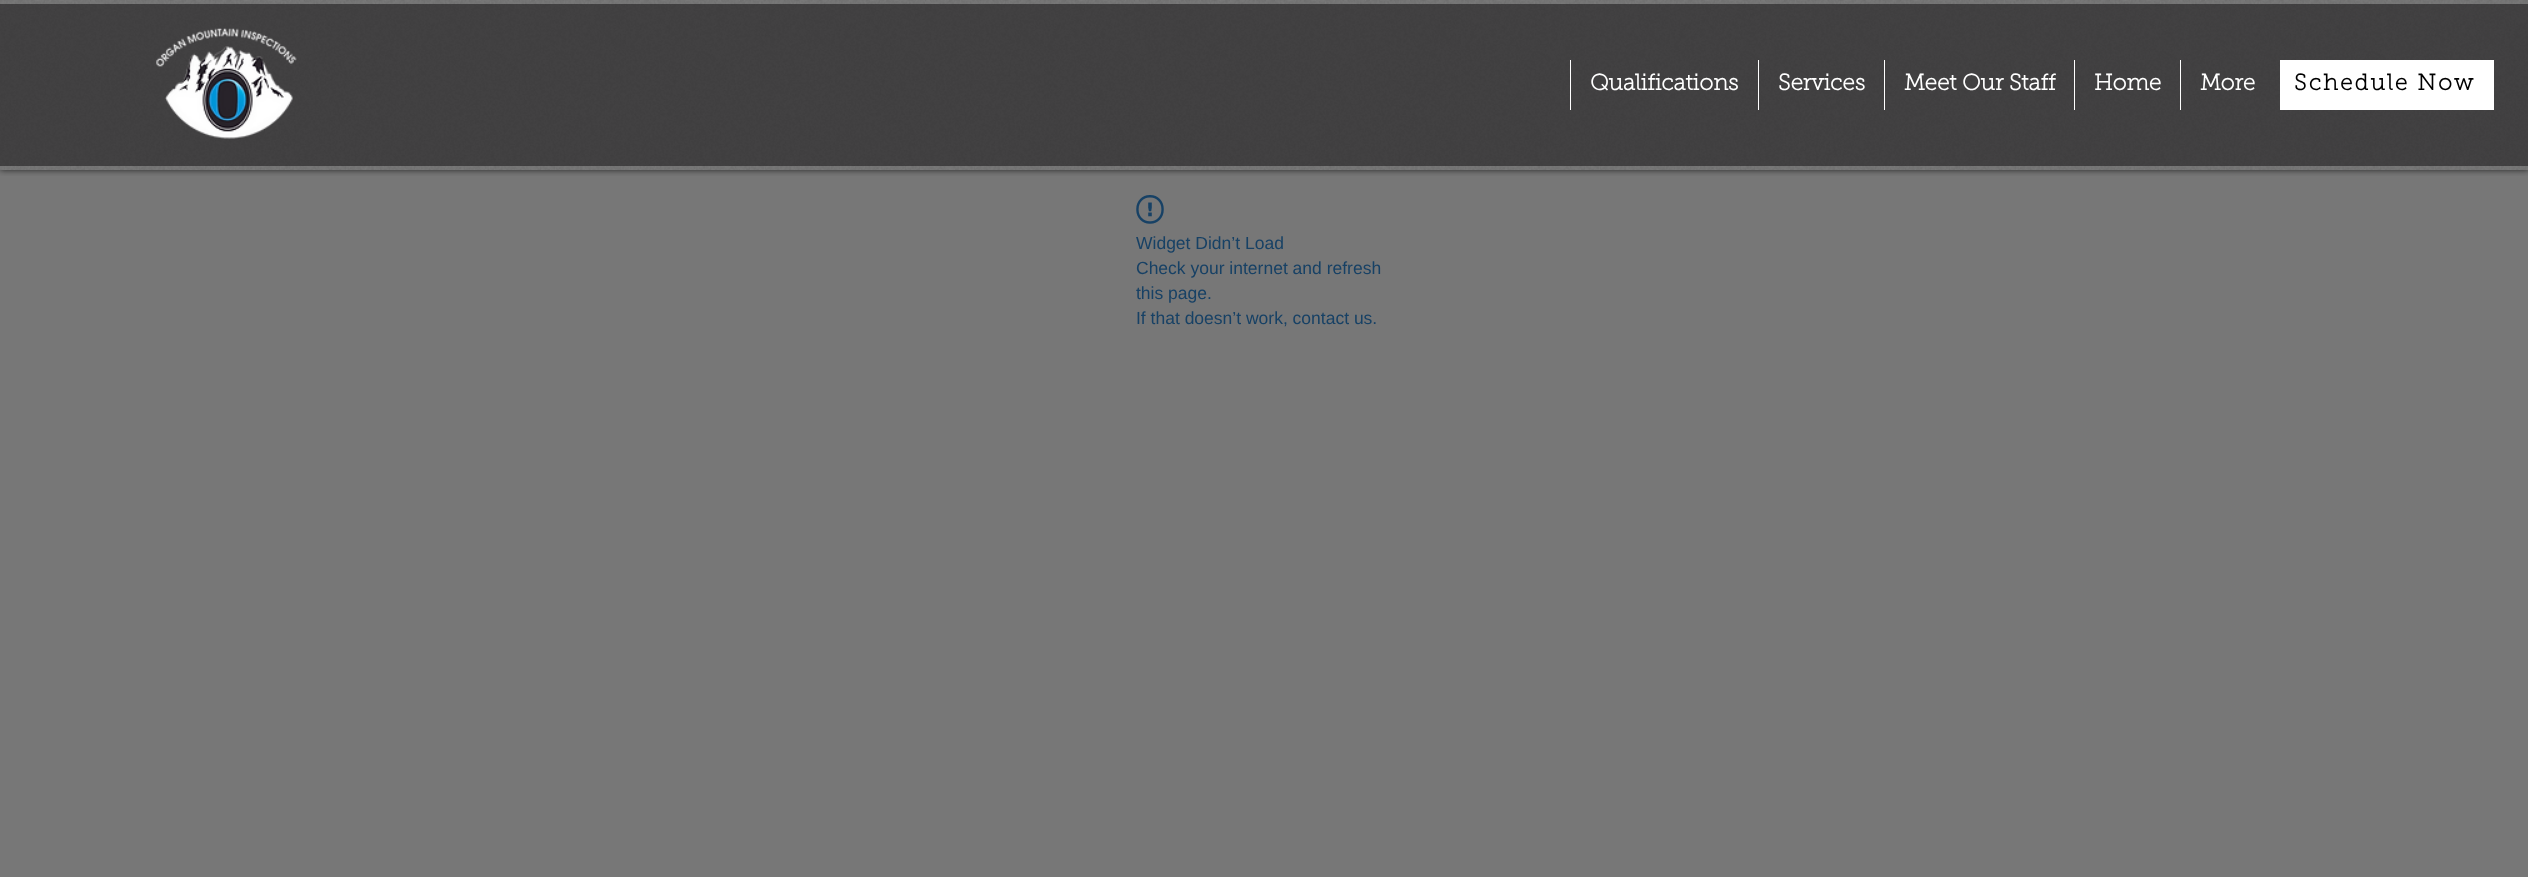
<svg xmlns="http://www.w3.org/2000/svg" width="2528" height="877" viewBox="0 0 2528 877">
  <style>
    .t1 { font: bold 22.5px 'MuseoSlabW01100'; fill: #fff; }
    .t2 { font: bold 22.5px 'MuseoSlabW01100'; letter-spacing: 2.25px; fill: #000; }
    .t3 { font: 17.5px Liberation Sans; fill: #174165; }
  </style>
  <defs>
    <clipPath id="clip1"><rect x="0" y="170" width="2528" height="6"/></clipPath>
  </defs>
  <rect width="100%" height="100%" fill="#777"/>
  <g clip-path="url(#clip1)">
    <rect x="0" y="0" width="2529" height="170" fill="#000000b3" filter="blur(3px)"/>
  </g>
  <image x="0" y="0" width="2528" height="170" href="images/1.png"/>
  <rect x="0" y="4" width="936" height="162" fill="#211f209c"/>
  <image x="156" y="28" width="141" height="111" href="images/2.png"/>
  <rect x="936" y="4" width="1592" height="162" fill="#211f209c"/>
  <rect x="1570" y="60" width="1" height="50" fill="#fff"/>
  <text x="1590" y="90" class="t1">Qualifications</text>
  <rect x="1758" y="60" width="1" height="50" fill="#fff"/>
  <text x="1778" y="90" class="t1">Services</text>
  <rect x="1884" y="60" width="1" height="50" fill="#fff"/>
  <text x="1904" y="90" class="t1">Meet Our Staff</text>
  <rect x="2074" y="60" width="1" height="50" fill="#fff"/>
  <text x="2094" y="90" class="t1">Home</text>
  <rect x="2180" y="60" width="1" height="50" fill="#fff"/>
  <text x="2200" y="90" class="t1">More</text>
  <rect x="2280" y="60" width="214" height="50" fill="#fff"/>
  <text x="2294" y="90" class="t2">Schedule Now</text>
  <image x="1136" y="195" width="28" height="29" href="images/3.png"/>
  <text x="1136" y="249" class="t3">Widget Didn’t Load</text>
  <text x="1136" y="274" class="t3">Check your internet and refresh</text>
  <text x="1136" y="299" class="t3">this page.</text>
  <text x="1136" y="324" class="t3">If that doesn’t work, contact us.</text>
</svg>
